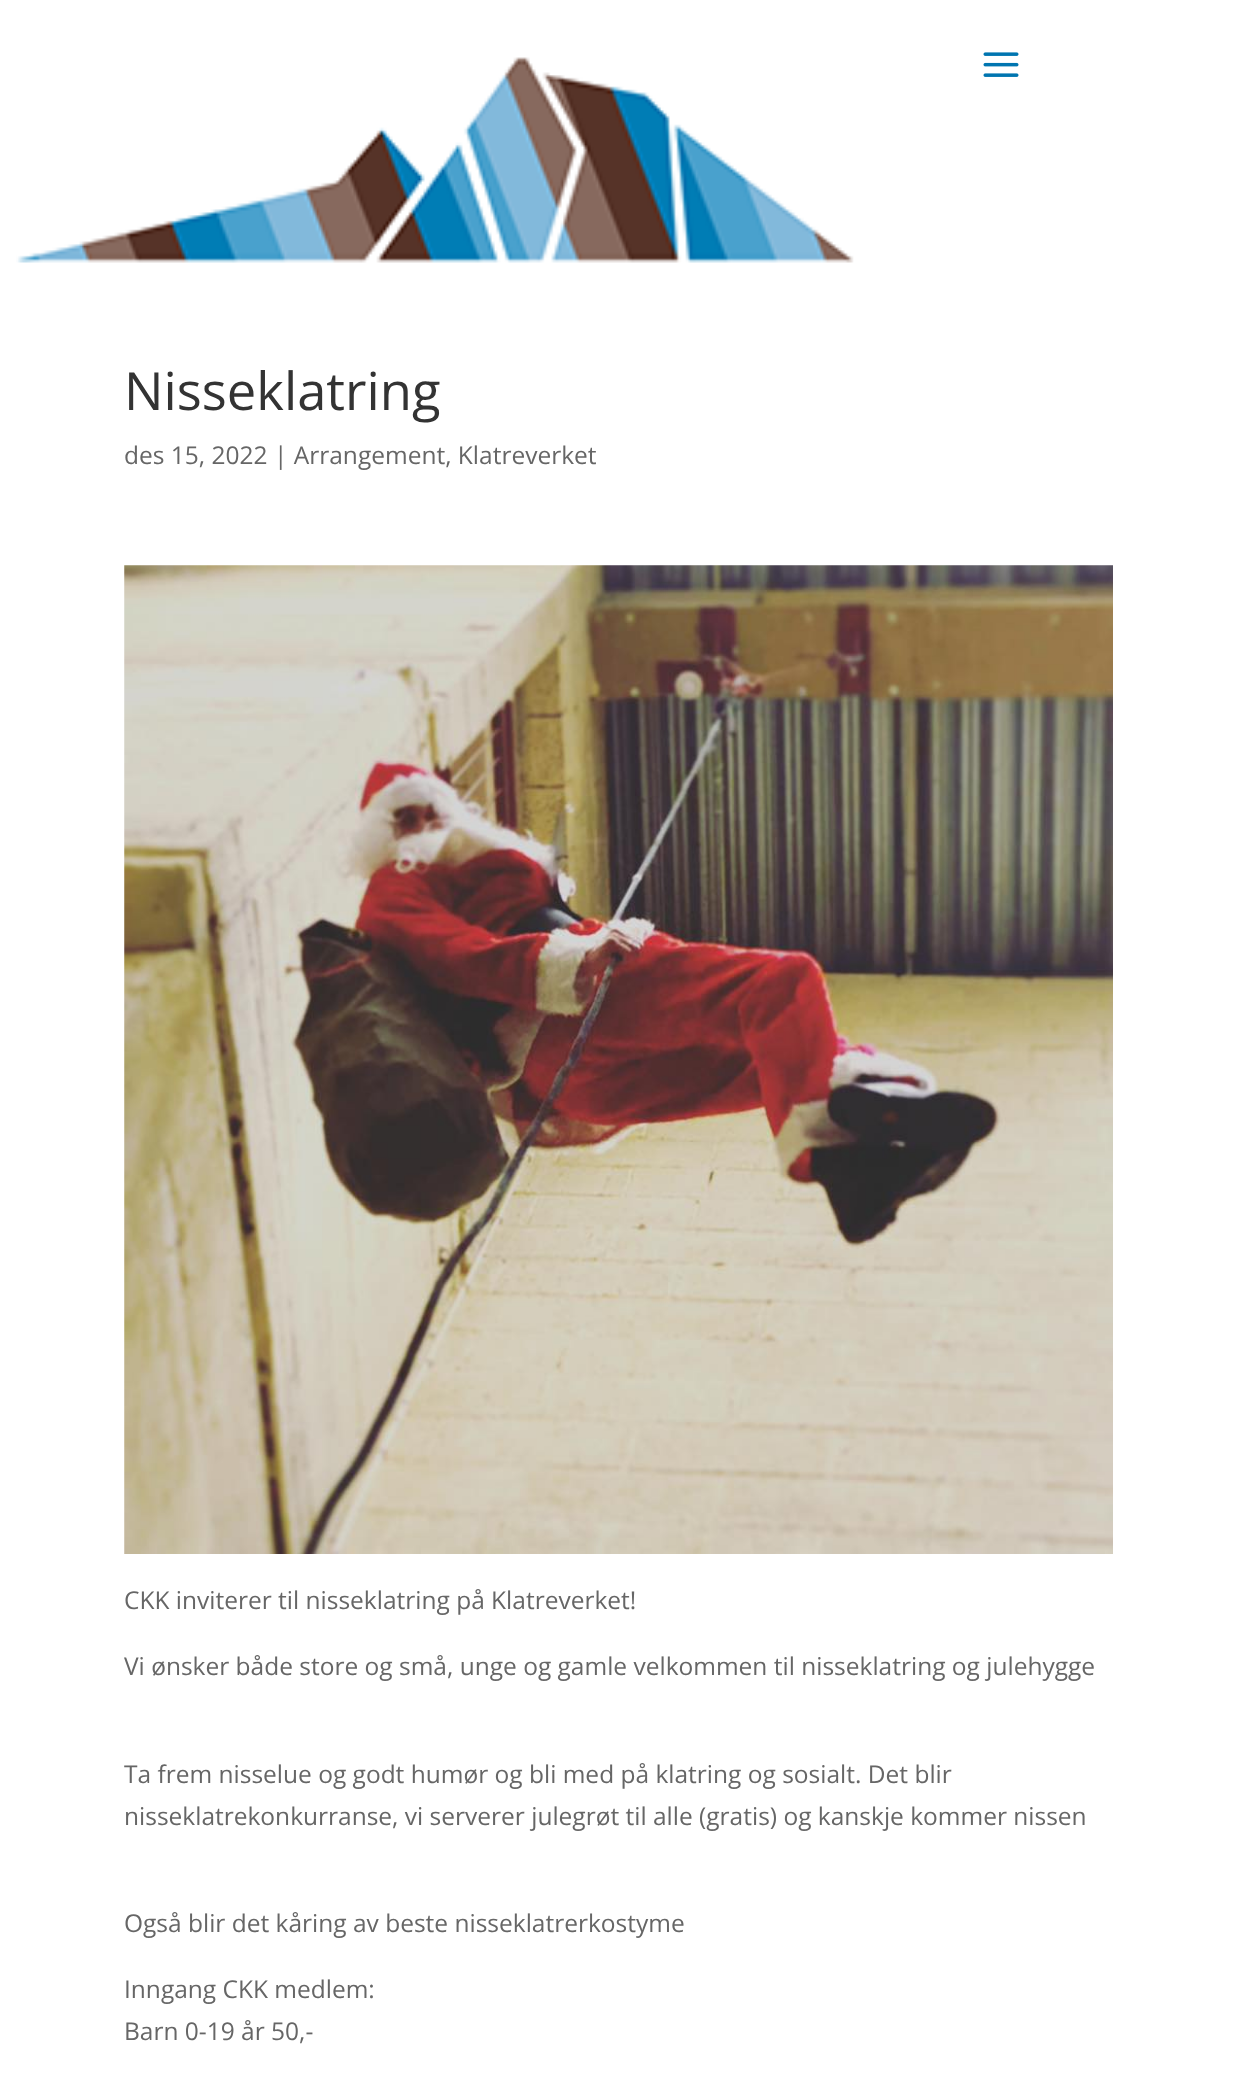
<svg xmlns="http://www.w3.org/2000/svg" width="1237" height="2073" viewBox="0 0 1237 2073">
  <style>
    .t1 { font: 52.5px Open Sans; fill: #333; }
    .t2 { font: 24.5px Open Sans; fill: #666; }
  </style>
  <rect width="100%" height="100%" fill="#fff"/>
  <image x="16" y="57" width="838" height="206" href="images/1.png"/>
  <image x="983" y="52" width="36" height="25" href="images/2.png"/>
  <text x="124" y="410" class="t1">Nisseklatring</text>
  <text x="124" y="464" class="t2">des 15, 2022 | Arrangement, Klatreverket</text>
  <image x="124" y="565" width="989" height="989" href="images/3.png"/>
  <text x="124" y="1609" class="t2">CKK inviterer til nisseklatring på Klatreverket!</text>
  <text x="124" y="1675" class="t2">Vi ønsker både store og små, unge og gamle velkommen til nisseklatring og julehygge</text>
  <text x="124" y="1783" class="t2">Ta frem nisselue og godt humør og bli med på klatring og sosialt. Det blir</text>
  <text x="124" y="1825" class="t2">nisseklatrekonkurranse, vi serverer julegrøt til alle (gratis) og kanskje kommer nissen</text>
  <text x="124" y="1932" class="t2">Også blir det kåring av beste nisseklatrerkostyme</text>
  <text x="124" y="1998" class="t2">Inngang CKK medlem:</text>
  <text x="124" y="2040" class="t2">Barn 0-19 år 50,-</text>
</svg>
